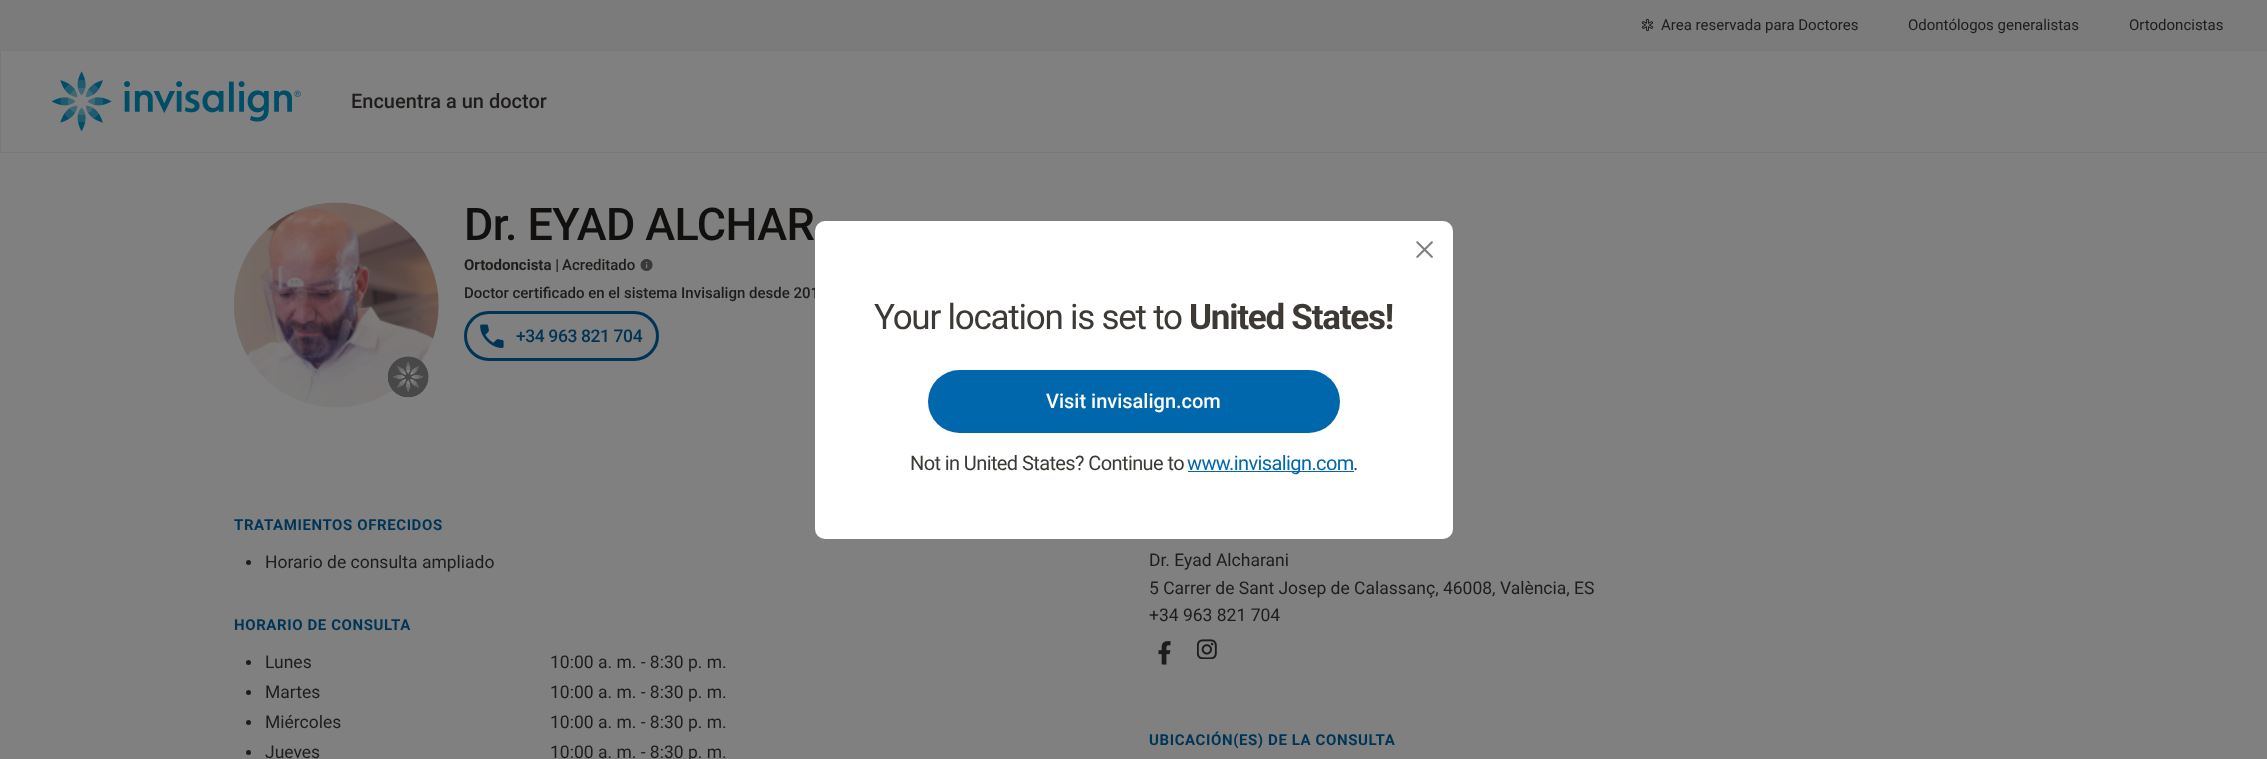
<svg xmlns="http://www.w3.org/2000/svg" width="2267" height="759" viewBox="0 0 2267 759">
  <style>
    .t1 { font: 15px Roboto; fill: #1f1d1b; }
    .t2 { font: 500 20px Roboto; fill: #1f1d1b; }
    .t3 { font: 500 45px Roboto; letter-spacing: -0.6px; fill: #11100f; }
    .t4 { font: bold 15px Roboto; fill: #1f1d1b; }
    .t5 { font: 500 15px Roboto; fill: #1f1d1b; }
    .t6 { font: 500 17.5px Roboto; letter-spacing: -0.4px; fill: #003456; }
    .t7 { font: bold 15px Roboto; letter-spacing: 0.6px; fill: #003456; }
    .t8 { font: 17.5px Roboto; fill: #1f1d1b; }
    .t9 { font: 35px Roboto; letter-spacing: -1.25px; fill: #3d3935; }
    .t10 { font: bold 35px Roboto; letter-spacing: -1.25px; fill: #3d3935; }
    .t11 { font: 500 20px Roboto; fill: #fff; }
    .t12 { font: 20px Roboto; letter-spacing: -0.6px; fill: #3d3935; }
    .t13 { font: 20px Roboto; letter-spacing: -0.6px; fill: #0067ac; }
  </style>
  <rect width="100%" height="100%" fill="#808080"/>
  <rect x="0" y="0" width="2267" height="50" fill="#7b7b7b"/>
  <image x="1641" y="18" width="13" height="14" href="images/1.png"/>
  <text x="1661" y="30" class="t1">Area reservada para Doctores</text>
  <text x="1908" y="30" class="t1">Odontólogos generalistas</text>
  <text x="2129" y="30" class="t1">Ortodoncistas</text>
  <rect x="0.5" y="50.5" width="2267" height="102" fill="none" stroke="#787878"/>
  <image x="51" y="71" width="250" height="61" href="images/2.png"/>
  <text x="351" y="108" class="t2">Encuentra a un doctor</text>
  <image x="234" y="202" width="205" height="206" href="images/3.png"/>
  <image x="387" y="356" width="42" height="42" href="images/4.png"/>
  <text x="464" y="240" class="t3">Dr. EYAD ALCHAR</text>
  <text x="464" y="270" class="t4">Ortodoncista |</text>
  <text x="562" y="270" class="t5">Acreditado</text>
  <image x="640" y="259" width="13" height="12" href="images/5.png"/>
  <text x="464" y="298" class="t5">Doctor certificado en el sistema Invisalign desde 201</text>
  <rect x="465.5" y="312.5" width="192" height="47" rx="23.5" fill="none" stroke="#003456" stroke-width="3"/>
  <image x="480" y="324" width="24" height="24" href="images/6.png"/>
  <text x="516" y="342" class="t6">+34 963 821 704</text>
  <text x="234" y="530" class="t7">TRATAMIENTOS OFRECIDOS</text>
  <circle cx="248.5" cy="562.5" r="2.5" fill="#1f1d1b"/>
  <text x="265" y="568" class="t8">Horario de consulta ampliado</text>
  <text x="234" y="630" class="t7">HORARIO DE CONSULTA</text>
  <circle cx="248.5" cy="662.5" r="2.5" fill="#1f1d1b"/>
  <text x="265" y="668" class="t8">Lunes</text>
  <text x="550" y="668" class="t8">10:00 a. m. - 8:30 p. m.</text>
  <circle cx="248.5" cy="692.5" r="2.5" fill="#1f1d1b"/>
  <text x="265" y="698" class="t8">Martes</text>
  <text x="550" y="698" class="t8">10:00 a. m. - 8:30 p. m.</text>
  <circle cx="248.5" cy="722.5" r="2.5" fill="#1f1d1b"/>
  <text x="265" y="728" class="t8">Miércoles</text>
  <text x="550" y="728" class="t8">10:00 a. m. - 8:30 p. m.</text>
  <circle cx="248.5" cy="752.5" r="2.5" fill="#1f1d1b"/>
  <text x="265" y="758" class="t8">Jueves</text>
  <text x="550" y="758" class="t8">10:00 a. m. - 8:30 p. m.</text>
  <text x="1149" y="566" class="t8">Dr. Eyad Alcharani</text>
  <text x="1149" y="594" class="t8">5 Carrer de Sant Josep de Calassanç, 46008, València, ES</text>
  <text x="1149" y="621" class="t8">+34 963 821 704</text>
  <image x="1158" y="641" width="13" height="24" href="images/7.png"/>
  <image x="1197" y="639" width="20" height="20" href="images/8.png"/>
  <text x="1149" y="745" class="t7">UBICACIÓN(ES) DE LA CONSULTA</text>
  <rect x="815" y="221" width="638" height="318" rx="10" fill="#fff"/>
  <image x="1416" y="241" width="17" height="17" href="images/9.png"/>
  <text x="874" y="329" class="t9">Your location is set to</text>
  <text x="1189" y="329" class="t10">United States!</text>
  <rect x="928" y="370" width="412" height="63" rx="31.5" fill="#0067ac"/>
  <text x="1046" y="408" class="t11">Visit invisalign.com</text>
  <text x="910" y="470" class="t12">Not in United States? Continue to</text>
  <rect x="1188" y="471" width="166" height="1" fill="#0067ac"/>
  <text x="1187" y="470" class="t13">www.invisalign.com</text>
  <text x="1353" y="470" class="t12">.</text>
</svg>
